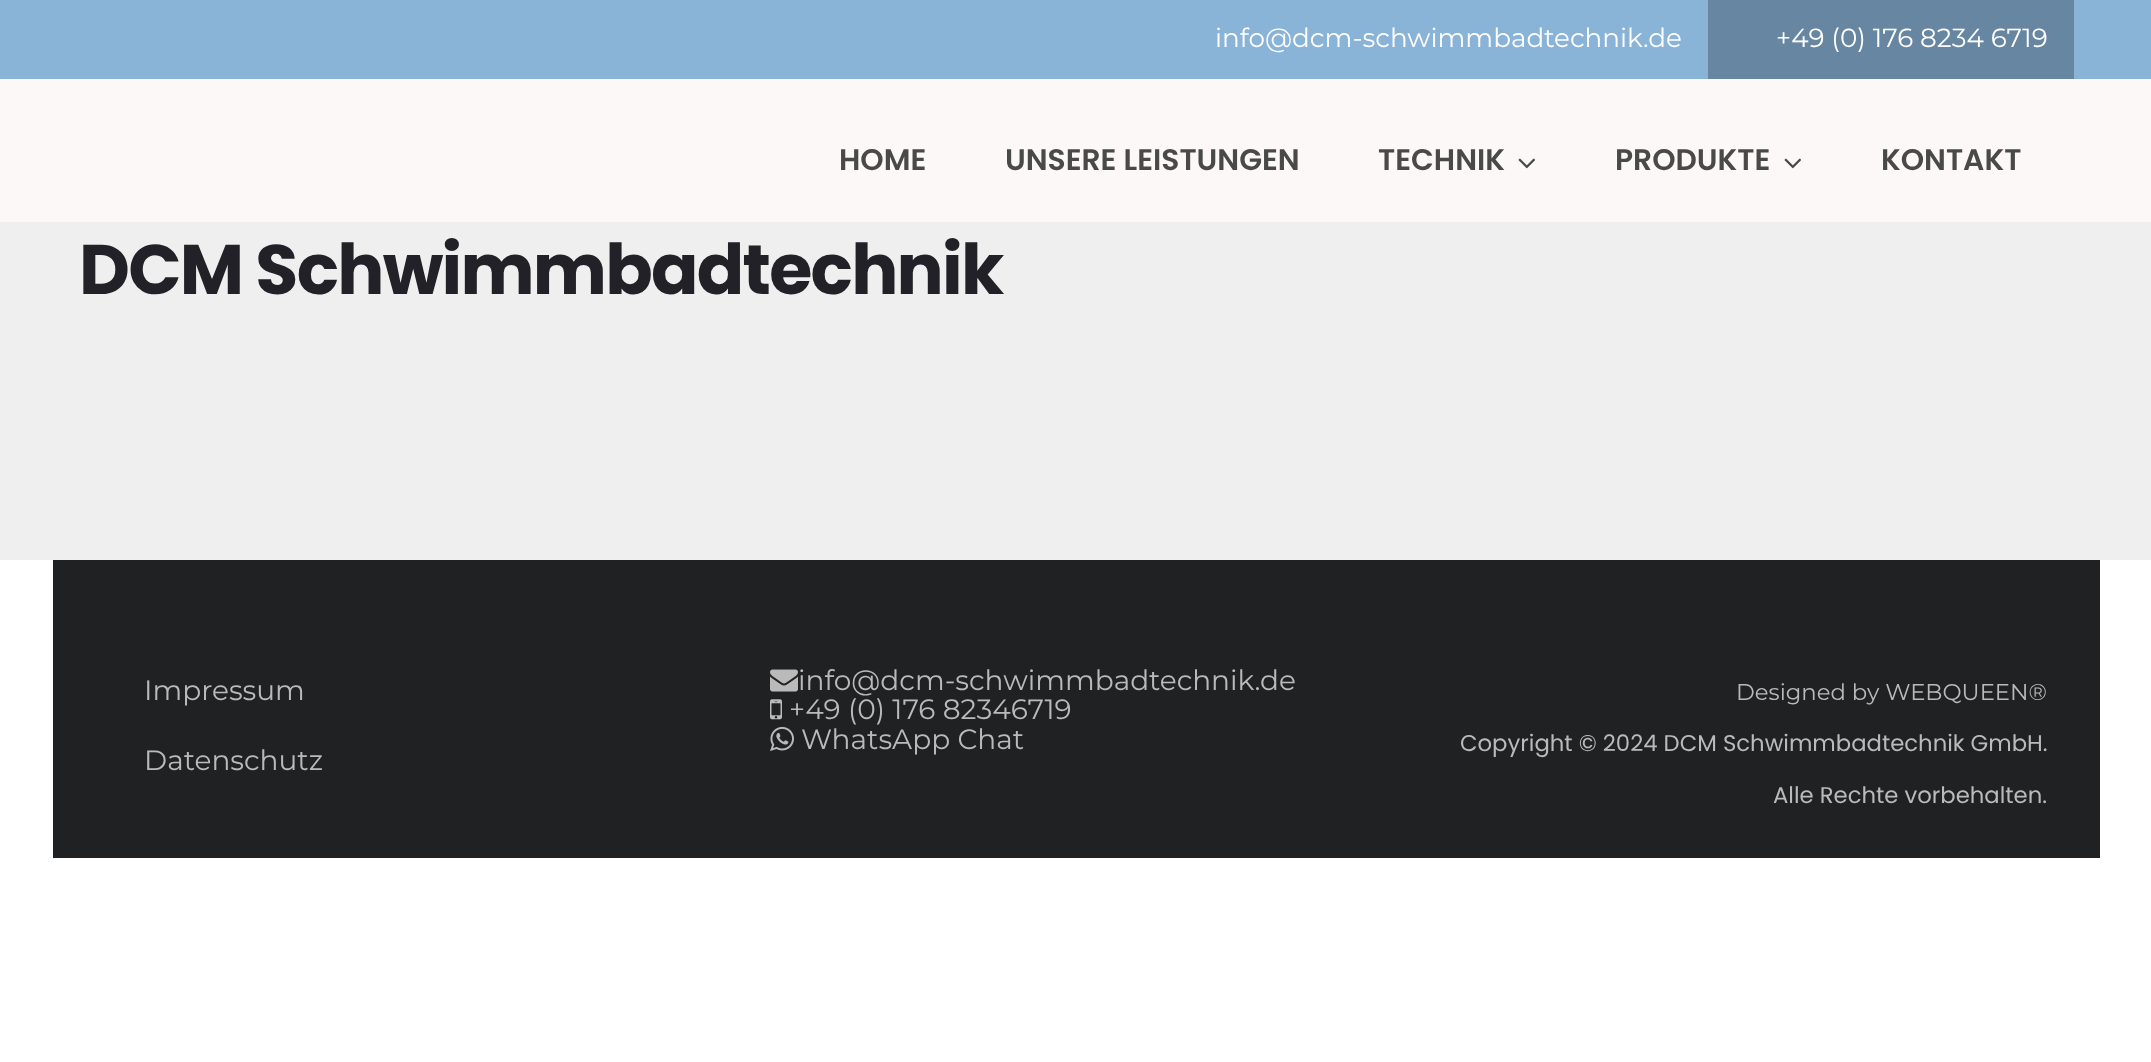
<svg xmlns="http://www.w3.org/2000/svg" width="2151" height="1062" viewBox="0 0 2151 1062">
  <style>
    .t1 { font: 26.25px Montserrat; fill: #fff; }
    .t2 { font: 600 29.75px Poppins; fill: #494949; }
    .t3 { font: bold 70px Poppins; letter-spacing: -1.75px; fill: #212127; }
    .t4 { font: 28px Montserrat; fill: #bababa; }
    .t5 { font: 22.75px Montserrat; fill: #bababa; }
    .t6 { font: 22.75px Poppins; fill: #bababa; }
  </style>
  <rect width="100%" height="100%" fill="#fff"/>
  <rect x="0" y="0" width="2151" height="79" fill="#89b3d7"/>
  <text x="1215" y="47" class="t1">info@dcm-schwimmbadtechnik.de</text>
  <rect x="1708" y="0" width="366" height="79" fill="#6786a1"/>
  <text x="1776" y="47" class="t1">+49 (0) 176 8234 6719</text>
  <rect x="0" y="79" width="2151" height="143" fill="#fcf8f8"/>
  <text x="839" y="170" class="t2">HOME</text>
  <text x="1005" y="170" class="t2">UNSERE LEISTUNGEN</text>
  <text x="1378" y="170" class="t2">TECHNIK</text>
  <image x="1518" y="158" width="17" height="11" href="images/1.png"/>
  <text x="1615" y="170" class="t2">PRODUKTE</text>
  <image x="1784" y="158" width="17" height="11" href="images/1.png"/>
  <text x="1881" y="170" class="t2">KONTAKT</text>
  <rect x="0" y="222" width="2151" height="338" fill="#efefef"/>
  <text x="79" y="294" class="t3">DCM Schwimmbadtechnik</text>
  <rect x="53" y="560" width="2047" height="298" fill="#202123"/>
  <text x="144" y="700" class="t4">Impressum</text>
  <text x="144" y="770" class="t4">Datenschutz</text>
  <image x="770" y="669" width="28" height="23" href="images/2.png"/>
  <text x="798" y="690" class="t4">info@dcm-schwimmbadtechnik.de</text>
  <image x="770" y="699" width="12" height="21" href="images/3.png"/>
  <text x="789" y="719" class="t4">+49 (0) 176 82346719</text>
  <image x="770" y="726" width="24" height="25" href="images/4.png"/>
  <text x="801" y="749" class="t4">WhatsApp Chat</text>
  <text x="1736" y="700" class="t5">Designed by WEBQUEEN®</text>
  <text x="1460" y="751" class="t6">Copyright © 2024 DCM Schwimmbadtechnik GmbH.</text>
  <text x="1773" y="803" class="t6">Alle Rechte vorbehalten.</text>
</svg>
